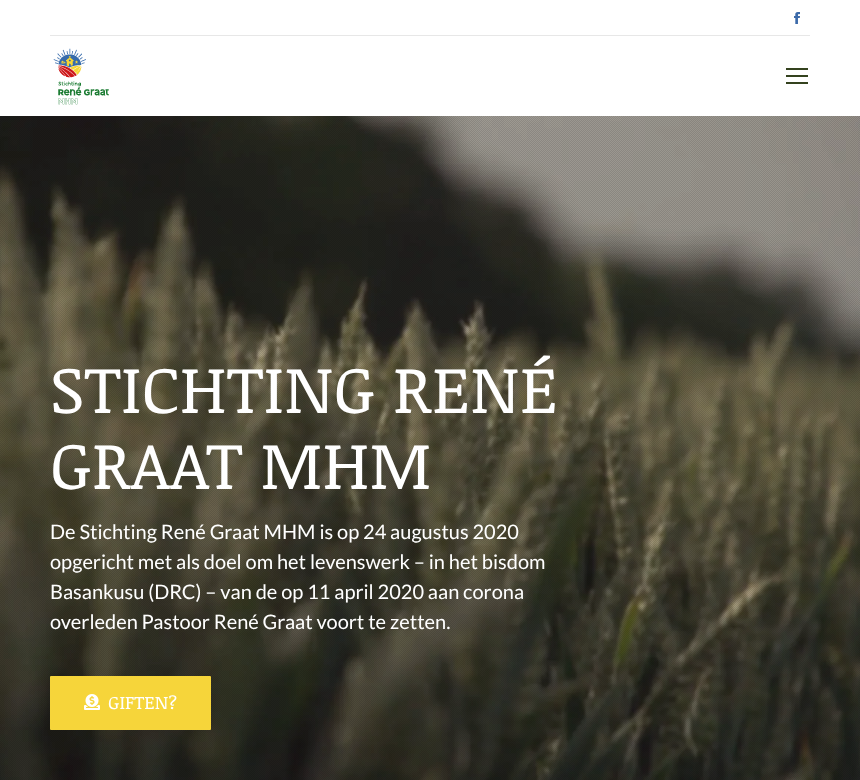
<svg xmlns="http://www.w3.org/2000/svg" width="860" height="780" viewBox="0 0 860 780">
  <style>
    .t1 { font: 66px Noticia Text; fill: #fff; }
    .t2 { font: 20px Lato; fill: #fff; }
    .t3 { font: 18px Noticia Text; fill: #fff; }
  </style>
  <rect width="100%" height="100%" fill="#fff"/>
  <image x="794" y="12" width="6" height="12" href="images/1.png"/>
  <rect x="50" y="35" width="760" height="1" fill="#e7e7e7"/>
  <image x="53" y="48" width="56" height="57" href="images/2.png"/>
  <rect x="786" y="68" width="22" height="2" fill="#34421e"/>
  <rect x="786" y="75" width="22" height="2" fill="#34421e"/>
  <rect x="786" y="82" width="22" height="2" fill="#34421e"/>
  <image x="0" y="116" width="860" height="664" href="images/3.png"/>
  <image x="0" y="116" width="860" height="664" href="images/4.png"/>
  <text x="50" y="413" class="t1">STICHTING RENÉ</text>
  <text x="50" y="489" class="t1">GRAAT MHM</text>
  <text x="50" y="539" class="t2">De Stichting René Graat MHM is op 24 augustus 2020</text>
  <text x="50" y="569" class="t2">opgericht met als doel om het levenswerk – in het bisdom</text>
  <text x="50" y="599" class="t2">Basankusu (DRC) – van de op 11 april 2020 aan corona</text>
  <text x="50" y="629" class="t2">overleden Pastoor René Graat voort te zetten.</text>
  <rect x="50" y="676" width="161" height="54" rx="1" fill="#f6d53a"/>
  <image x="84" y="694" width="16" height="16" href="images/5.png"/>
  <text x="108" y="709" class="t3">GIFTEN?</text>
</svg>
